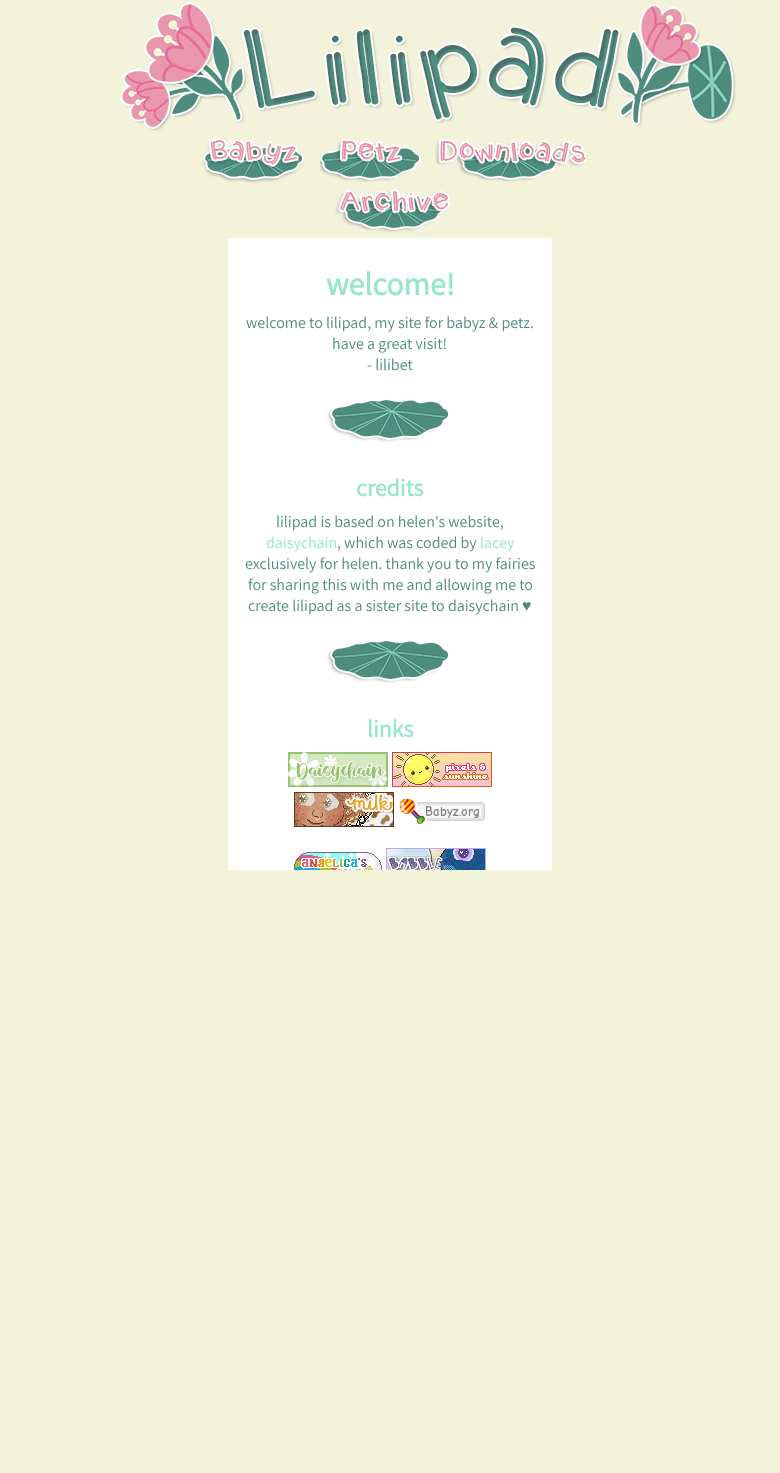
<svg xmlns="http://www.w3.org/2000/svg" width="780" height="1473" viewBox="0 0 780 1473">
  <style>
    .t1 { font: bold 32px Assistant; fill: #98e5cf; }
    .t2 { font: 200 16px Assistant; fill: #4e8c7c; }
    .t3 { font: bold 24px Assistant; fill: #98e5cf; }
    .t4 { font: 200 16px Assistant; fill: #98e5cf; }
    .t5 { font: 16px Liberation Sans; fill: #4e8c7c; }
  </style>
  <rect width="100%" height="100%" fill="#f3f3da"/>
  <image x="120" y="2" width="616" height="129" href="images/1.png"/>
  <image x="202" y="138" width="102" height="45" href="images/2.png"/>
  <image x="320" y="138" width="101" height="45" href="images/3.png"/>
  <image x="435" y="139" width="153" height="44" href="images/4.png"/>
  <image x="335" y="189" width="115" height="44" href="images/5.png"/>
  <rect x="228" y="238" width="324" height="632" fill="#fff"/>
  <text x="326" y="295" class="t1">welcome!</text>
  <text x="246" y="328" class="t2">welcome to lilipad, my site for babyz &amp; petz.</text>
  <text x="332" y="349" class="t2">have a great visit!</text>
  <text x="367" y="370" class="t2">- lilibet</text>
  <image x="327" y="400" width="121" height="42" href="images/6.png"/>
  <text x="356" y="496" class="t3">credits</text>
  <text x="276" y="527" class="t2">lilipad is based on helen's website,</text>
  <text x="266" y="548" class="t4">daisychain</text>
  <text x="337" y="548" class="t2">, which was coded by</text>
  <text x="480" y="548" class="t4">lacey</text>
  <text x="245" y="569" class="t2">exclusively for helen. thank you to my fairies</text>
  <text x="248" y="590" class="t2">for sharing this with me and allowing me to</text>
  <text x="248" y="611" class="t2">create lilipad as a sister site to daisychain</text>
  <text x="522" y="611" class="t5">♥</text>
  <image x="327" y="641" width="121" height="42" href="images/6.png"/>
  <text x="367" y="737" class="t3">links</text>
  <image x="288" y="752" width="100" height="35" href="images/7.png"/>
  <image x="392" y="752" width="100" height="35" href="images/8.png"/>
  <image x="294" y="792" width="100" height="35" href="images/9.png"/>
  <image x="399" y="798" width="86" height="27" href="images/10.png"/>
  <image x="294" y="852" width="88" height="18" href="images/11.png"/>
  <image x="386" y="848" width="100" height="22" href="images/12.png"/>
</svg>
